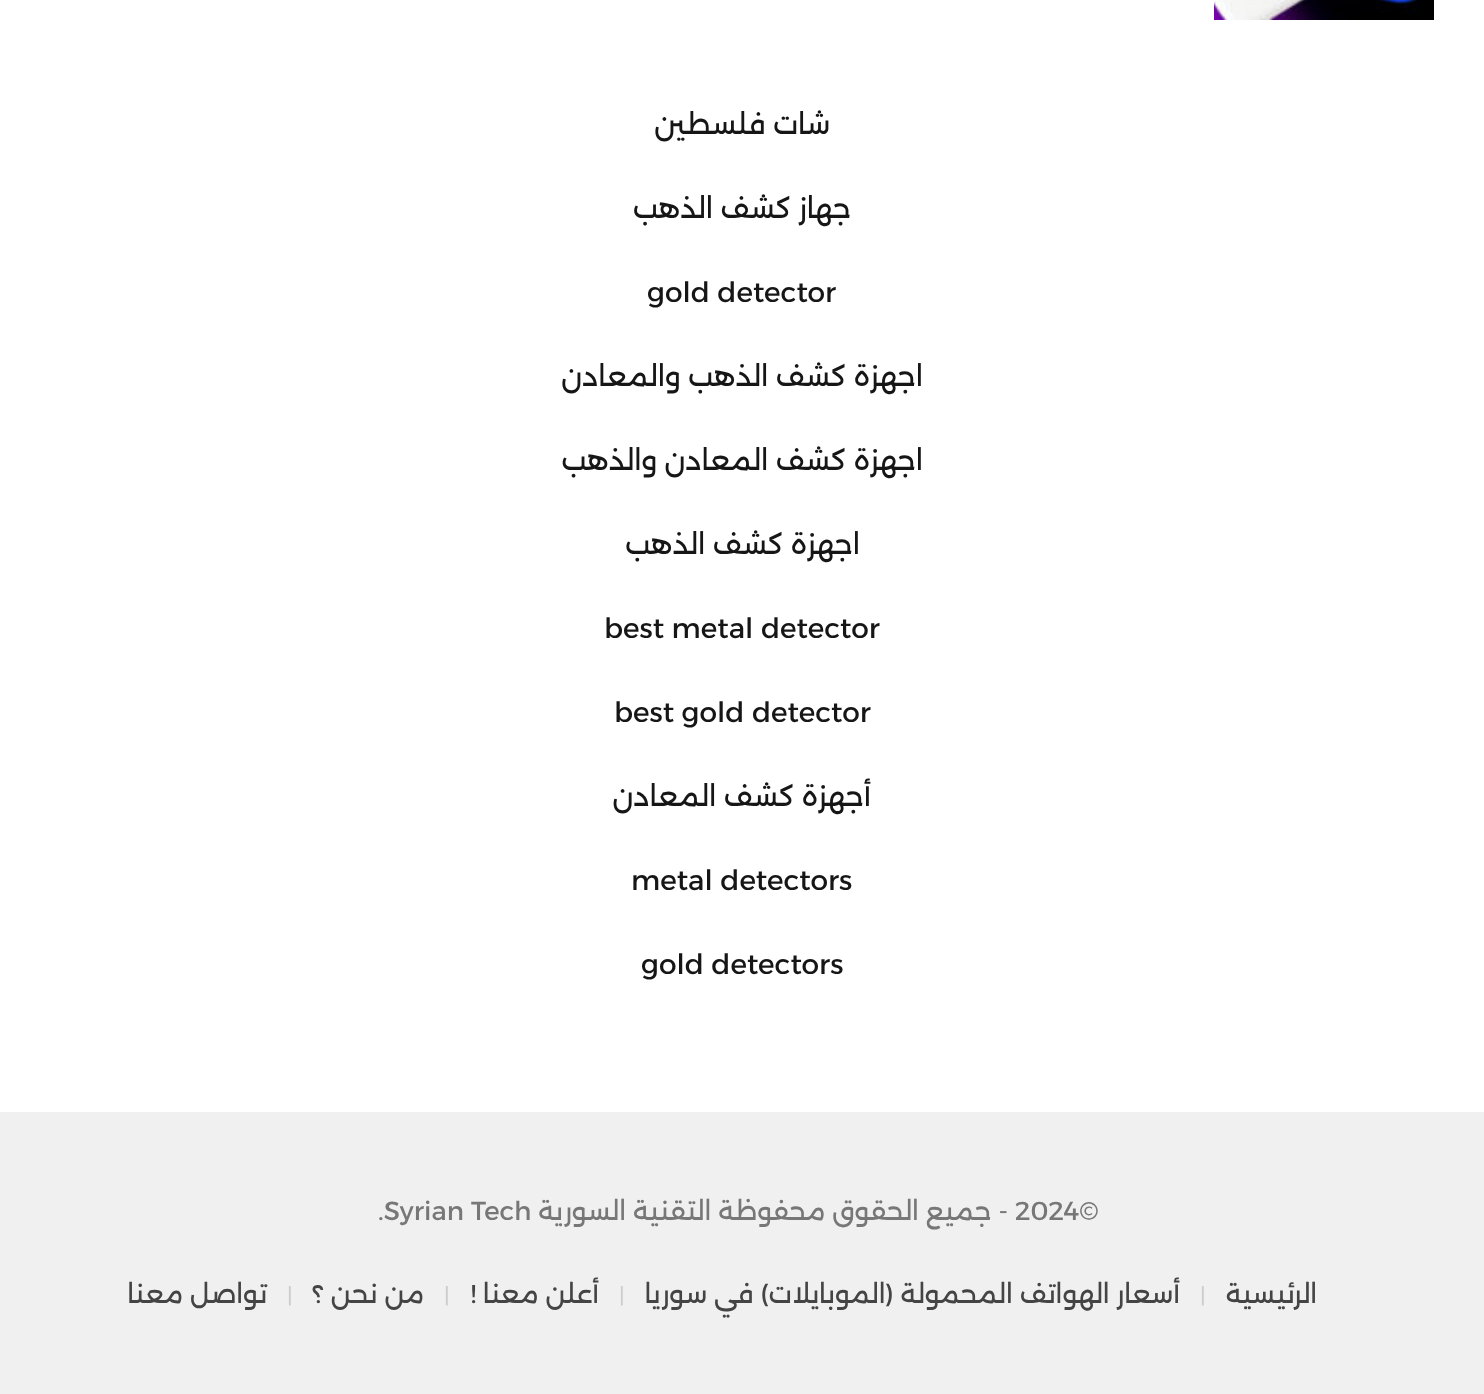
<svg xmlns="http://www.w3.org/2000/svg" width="1484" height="1394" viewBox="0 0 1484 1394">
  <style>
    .t1 { font: 28px Alexandria; direction: rtl; fill: #161616; }
    .t2 { font: 28px Alexandria; fill: #161616; }
    .t3 { font: 26px Alexandria; fill: #777; }
    .t4 { font: 26px Alexandria; direction: rtl; fill: #777; }
    .t5 { font: 26px Alexandria; direction: rtl; fill: #444; }
    .t6 { font: 21px Alexandria; fill: #ccc; }
  </style>
  <rect width="100%" height="100%" fill="#fff"/>
  <image x="1214" y="0" width="220" height="20" href="images/1.png"/>
  <text x="830" y="134" class="t1">شات فلسطين</text>
  <text x="851" y="218" class="t1">جهاز كشف الذهب</text>
  <text x="647" y="302" class="t2">gold detector</text>
  <text x="923" y="386" class="t1">اجهزة كشف الذهب والمعادن</text>
  <text x="923" y="470" class="t1">اجهزة كشف المعادن والذهب</text>
  <text x="860" y="554" class="t1">اجهزة كشف الذهب</text>
  <text x="604" y="638" class="t2">best metal detector</text>
  <text x="614" y="722" class="t2">best gold detector</text>
  <text x="871" y="806" class="t1">أجهزة كشف المعادن</text>
  <text x="631" y="890" class="t2">metal detectors</text>
  <text x="641" y="974" class="t2">gold detectors</text>
  <rect x="0" y="1112" width="1484" height="282" fill="#f0f0f0"/>
  <text x="1015" y="1220" class="t3">2024©</text>
  <text x="1008" y="1220" class="t4">- جميع الحقوق محفوظة التقنية السورية</text>
  <text x="378" y="1220" class="t3">.Syrian Tech</text>
  <text x="1317" y="1303" class="t5">الرئيسية</text>
  <text x="1200" y="1303" class="t6">|</text>
  <text x="1180" y="1303" class="t5">أسعار الهواتف المحمولة (الموبايلات) في سوريا</text>
  <text x="619" y="1303" class="t6">|</text>
  <text x="599" y="1303" class="t5">أعلن معنا !</text>
  <text x="444" y="1303" class="t6">|</text>
  <text x="424" y="1303" class="t5">من نحن ؟</text>
  <text x="287" y="1303" class="t6">|</text>
  <text x="267" y="1303" class="t5">تواصل معنا</text>
</svg>
